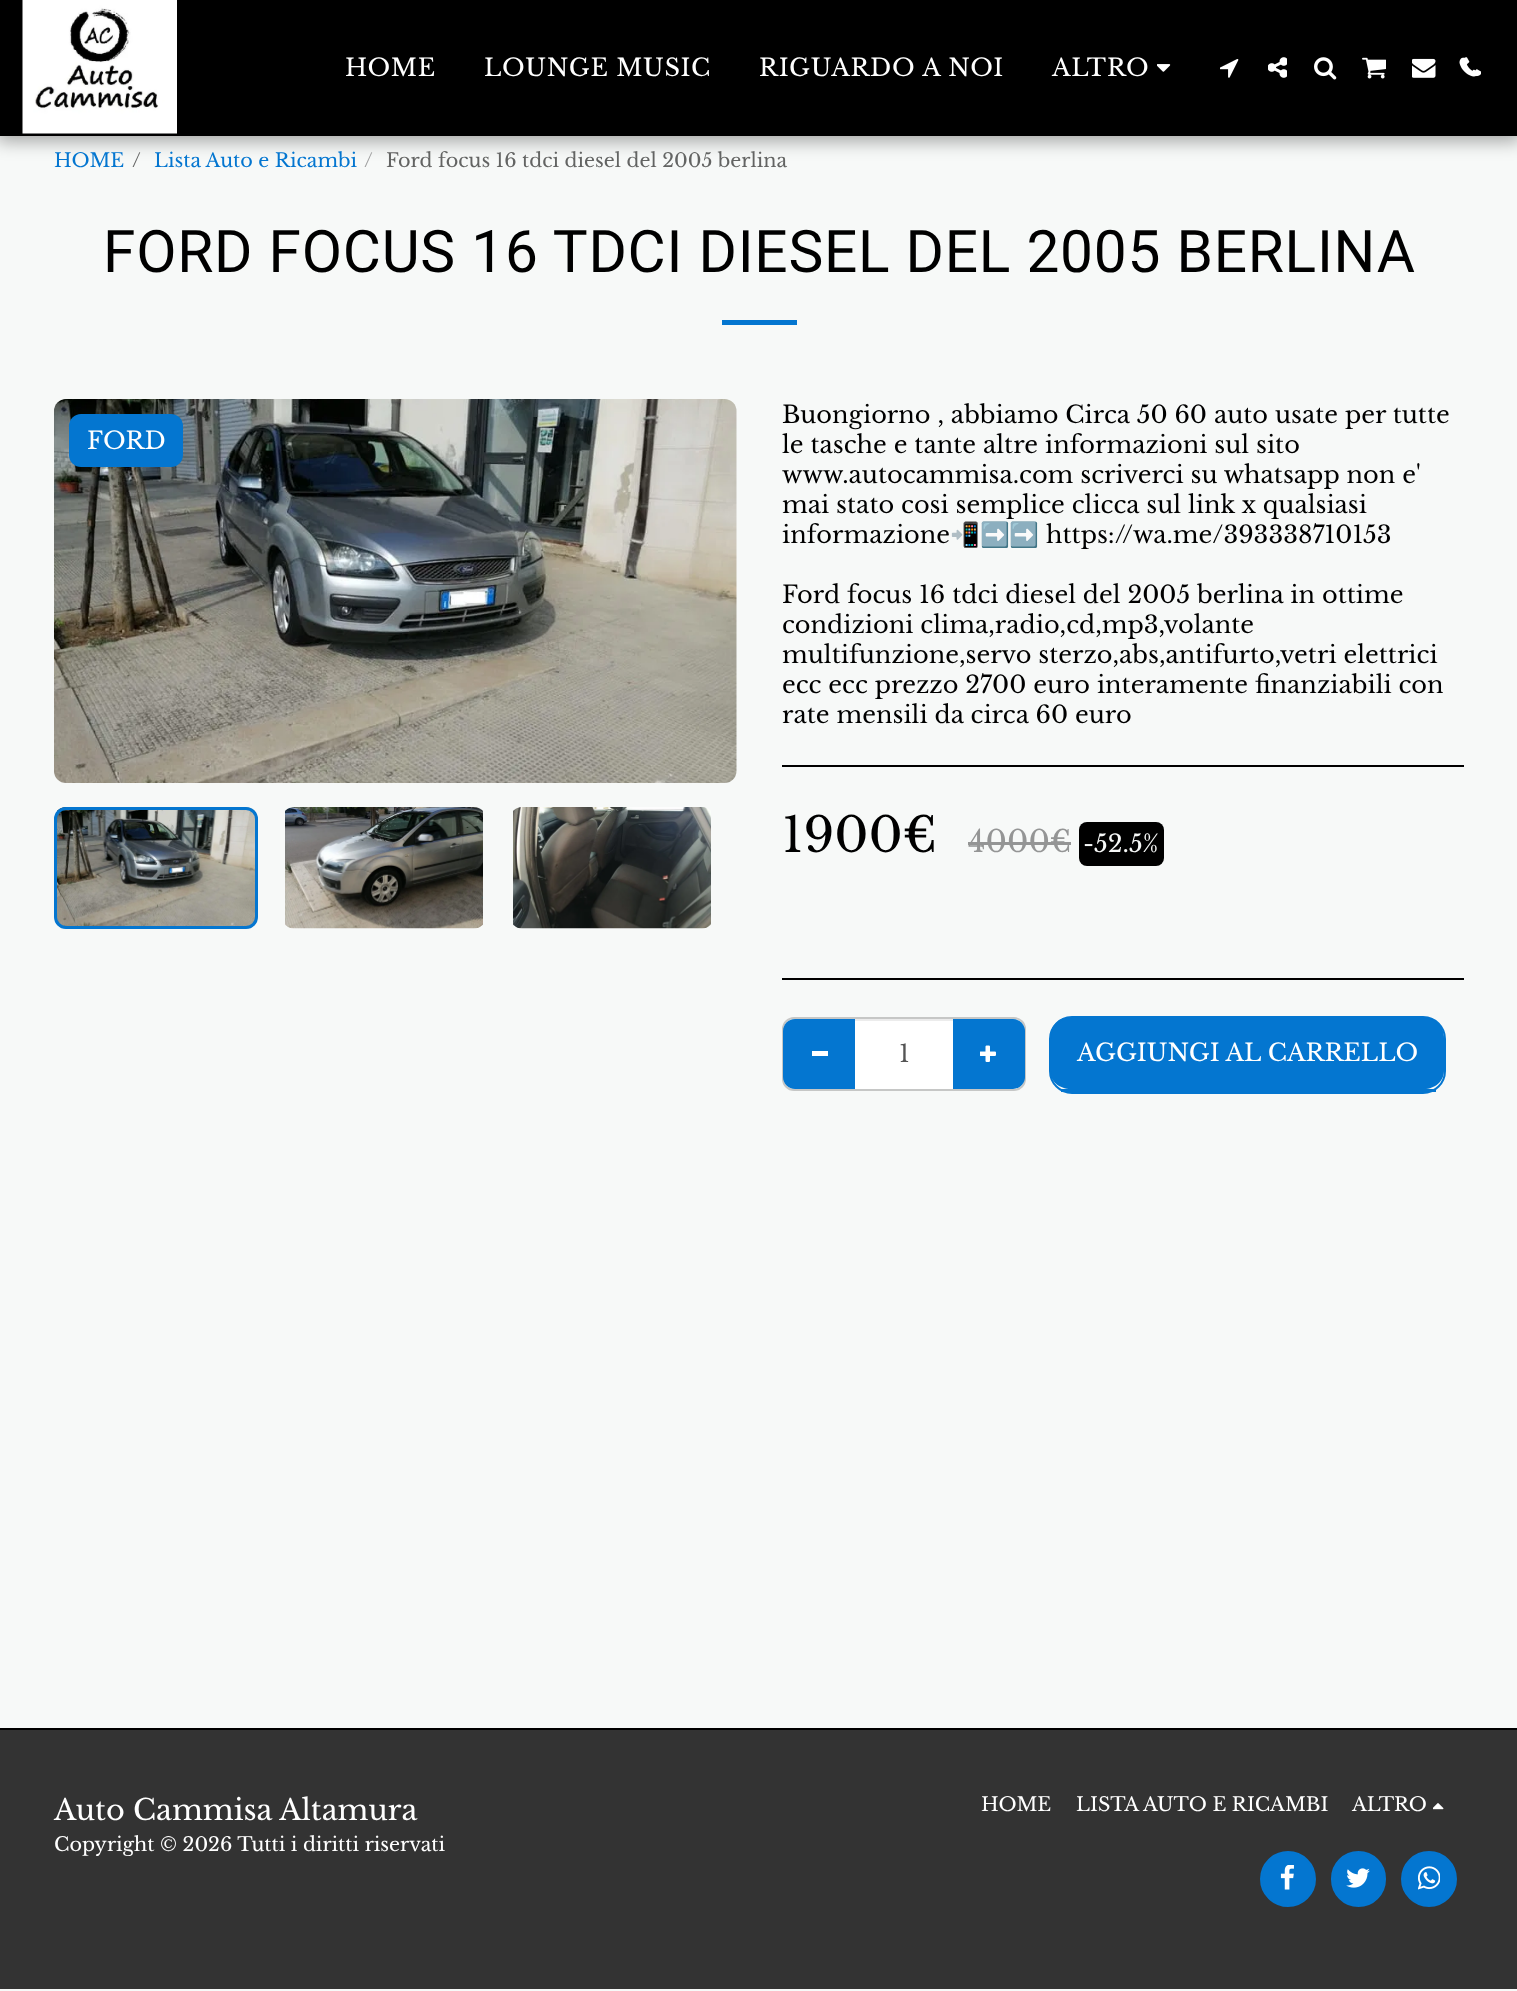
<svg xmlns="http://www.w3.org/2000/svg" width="1517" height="1991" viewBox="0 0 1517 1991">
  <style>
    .t1 { font: 24px Libre Baskerville; letter-spacing: 0.75px; fill: #fff; }
    .t2 { font: 19.2px Libre Baskerville; fill: #0476d0; }
    .t3 { font: 19.2px Libre Baskerville; fill: #636463; }
    .t4 { font: 19.2px Libre Baskerville; fill: #9e9f9f; }
    .t5 { font: 58.6px Roboto; letter-spacing: 0.75px; fill: #000; }
    .t6 { font: 24px Libre Baskerville; fill: #fff; }
    .t7 { font: 24px Libre Baskerville; fill: #000; }
    .t8 { font: 24px Noto Color Emoji; fill: #000; }
    .t9 { font: 48px Libre Baskerville; fill: #000; }
    .t10 { font: 30px Libre Baskerville; fill: #949595; }
    .t11 { font: 24px Libre Baskerville; fill: #f7f9f8; }
    .t12 { font: 24px Libre Baskerville; fill: #555; }
    .t13 { font: 28.75px Libre Baskerville; fill: #fff; }
    .t14 { font: 19.2px Libre Baskerville; fill: #fff; }
  </style>
  <rect width="100%" height="100%" fill="#f7f9f8"/>
  <rect x="-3" y="0" width="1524" height="141" fill="#00000059" filter="blur(9px)"/>
  <rect x="0" y="0" width="1517" height="136" fill="#000"/>
  <image x="22" y="0" width="155" height="134" href="images/1.png"/>
  <text x="345" y="76" class="t1">HOME</text>
  <text x="484" y="76" class="t1">LOUNGE MUSIC</text>
  <text x="759" y="76" class="t1">RIGUARDO A NOI</text>
  <text x="1052" y="76" class="t1">ALTRO</text>
  <image x="1157" y="64" width="14" height="8" href="images/2.png"/>
  <image x="1220" y="59" width="19" height="19" href="images/3.png"/>
  <image x="1268" y="57" width="19" height="21" href="images/4.png"/>
  <image x="1314" y="57" width="23" height="23" href="images/5.png"/>
  <image x="1362" y="57" width="24" height="22" href="images/6.png"/>
  <image x="1412" y="58" width="24" height="20" href="images/7.png"/>
  <image x="1463" y="57" width="18" height="20" href="images/8.png"/>
  <image x="1459" y="57" width="17" height="20" href="images/9.png"/>
  <text x="54" y="167" class="t2">HOME</text>
  <text x="132" y="167" class="t3">/</text>
  <text x="154" y="167" class="t2">Lista Auto e Ricambi</text>
  <text x="364" y="167" class="t4">/</text>
  <text x="386" y="167" class="t3">Ford focus 16 tdci diesel del 2005 berlina</text>
  <text x="103" y="272" class="t5">FORD FOCUS 16 TDCI DIESEL DEL 2005 BERLINA</text>
  <rect x="722" y="320" width="75" height="5" fill="#0476d0"/>
  <image x="54" y="399" width="683" height="384" href="images/10.png"/>
  <rect x="69" y="414" width="114" height="53" rx="12" fill="#0476d0"/>
  <text x="87" y="449" class="t6">FORD</text>
  <image x="57" y="807" width="198" height="122" href="images/11.png"/>
  <rect x="55.5" y="808.5" width="201" height="119" rx="10.5" fill="none" stroke="#0476d0" stroke-width="3"/>
  <image x="285" y="807" width="198" height="122" href="images/12.png"/>
  <image x="513" y="807" width="198" height="122" href="images/13.png"/>
  <text x="782" y="423" class="t7">Buongiorno , abbiamo Circa 50 60 auto usate per tutte</text>
  <text x="782" y="453" class="t7">le tasche e tante altre informazioni sul sito</text>
  <text x="782" y="483" class="t7">www.autocammisa.com scriverci su whatsapp non e'</text>
  <text x="782" y="513" class="t7">mai stato cosi semplice clicca sul link x qualsiasi</text>
  <text x="782" y="543" class="t7">informazione</text>
  <text x="950" y="543" class="t8">📲➡️➡️</text>
  <text x="1046" y="543" class="t7">https://wa.me/393338710153</text>
  <text x="782" y="603" class="t7">Ford focus 16 tdci diesel del 2005 berlina in ottime</text>
  <text x="782" y="633" class="t7">condizioni clima,radio,cd,mp3,volante</text>
  <text x="782" y="663" class="t7">multifunzione,servo sterzo,abs,antifurto,vetri elettrici</text>
  <text x="782" y="693" class="t7">ecc ecc prezzo 2700 euro interamente finanziabili con</text>
  <text x="782" y="723" class="t7">rate mensili da circa 60 euro</text>
  <rect x="782" y="765" width="682" height="2" fill="#000"/>
  <text x="782" y="852" class="t9">1900€</text>
  <text x="968" y="852" class="t10">4000€</text>
  <rect x="968" y="842" width="103" height="3" fill="#949595"/>
  <rect x="1079" y="822" width="85" height="44" rx="8" fill="#000"/>
  <text x="1083" y="852" class="t11">-52.5%</text>
  <rect x="782" y="978" width="682" height="2" fill="#000"/>
  <rect x="783" y="1018" width="242" height="72" rx="11" fill="none" stroke="#c6c7c6" stroke-width="2"/>
  <path d="M795 1019H857V1089H795C788.5 1089 783 1083.5 783 1077V1031C783 1024.5 788.5 1019 795 1019Z" fill="#0476d0"/>
  <rect x="812" y="1051" width="16" height="5" fill="#fff"/>
  <path d="M951 1019H1013C1019.5 1019 1025 1024.5 1025 1031V1077C1025 1083.5 1019.5 1089 1013 1089H951Z" fill="#0476d0"/>
  <rect x="855" y="1021" width="98" height="68" fill="#fff"/>
  <rect x="855" y="1019" width="98" height="2" fill="#ececec"/>
  <text x="899" y="1062" class="t12">1</text>
  <image x="980" y="1045" width="16" height="17" href="images/14.png"/>
  <path d="M1071 1017H1424C1435 1017 1444 1026 1444 1038V1071C1444 1081 1435 1089 1424 1089H1071C1059 1089 1050 1081 1050 1071V1038C1050 1026 1059 1017 1071 1017Z" fill="#0476d0"/>
  <rect x="1050" y="1017" width="395" height="76" rx="22" fill="none" stroke="#0476d0" stroke-width="2"/>
  <rect x="1061" y="1089" width="375" height="3" fill="#0476d0"/>
  <text x="1077" y="1061" class="t6">AGGIUNGI AL CARRELLO</text>
  <rect x="0" y="1730" width="1517" height="259" fill="#333"/>
  <rect x="0" y="1728" width="1517" height="2" fill="#000"/>
  <text x="54" y="1820" class="t13">Auto Cammisa Altamura</text>
  <text x="54" y="1851" class="t14">Copyright © 2026 Tutti i diritti riservati</text>
  <text x="981" y="1811" class="t14">HOME</text>
  <text x="1076" y="1811" class="t14">LISTA AUTO E RICAMBI</text>
  <text x="1352" y="1811" class="t14">ALTRO</text>
  <image x="1433" y="1803" width="11" height="7" href="images/15.png"/>
  <circle cx="1288" cy="1879" r="27" fill="#0476d0" stroke="#0476d0" stroke-width="2"/>
  <image x="1280" y="1865" width="14" height="25" href="images/16.png"/>
  <rect x="1332" y="1852" width="53" height="54" rx="26.5" fill="#0476d0" stroke="#0476d0" stroke-width="2"/>
  <image x="1346" y="1868" width="24" height="20" href="images/17.png"/>
  <circle cx="1429" cy="1879" r="27" fill="#0476d0" stroke="#0476d0" stroke-width="2"/>
  <image x="1418" y="1866" width="22" height="24" href="images/18.png"/>
</svg>
